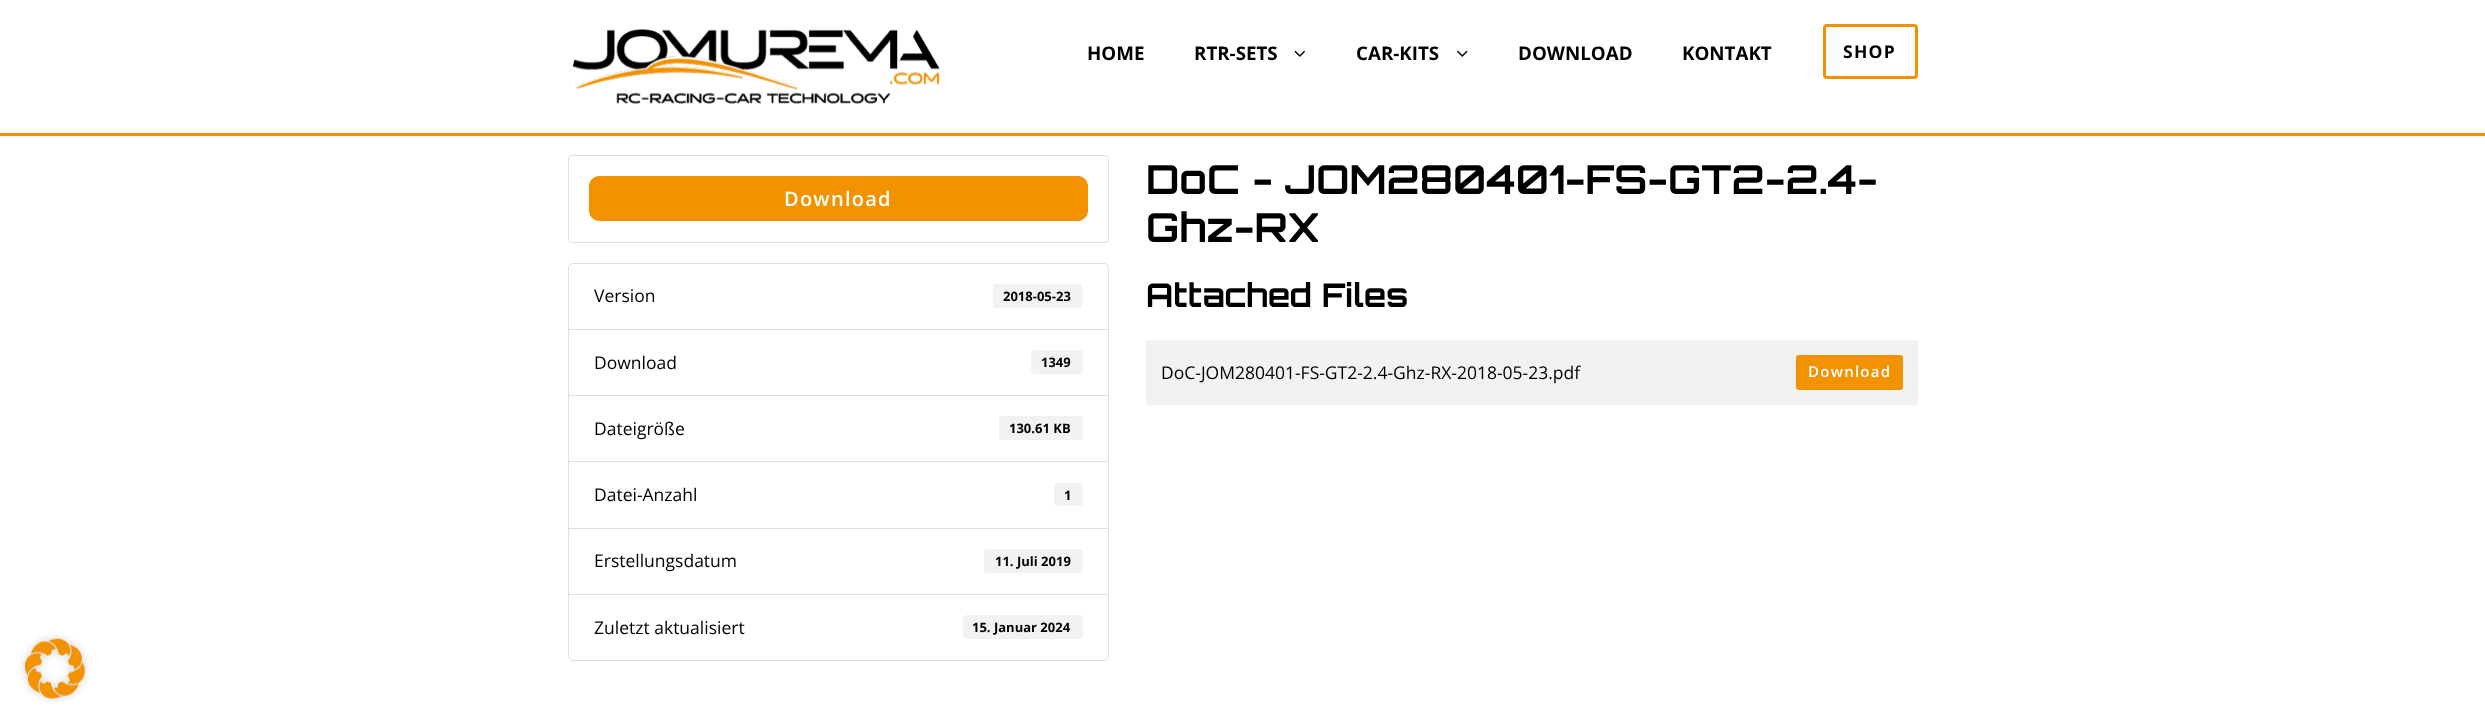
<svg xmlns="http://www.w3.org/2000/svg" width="2485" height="723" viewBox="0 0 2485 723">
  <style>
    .t1 { font: bold 18.75px Open Sans; fill: #000; }
    .t2 { font: bold 17.5px Open Sans; letter-spacing: 1.25px; fill: #000; }
    .t3 { font: 600 20px Open Sans; letter-spacing: 1.25px; fill: #fff; }
    .t4 { font: 17.5px Open Sans; fill: #000; }
    .t5 { font: bold 13px Open Sans; fill: #000; }
    .t6 { font: bold 40px Orbitron; fill: #000; }
    .t7 { font: bold 32.5px Orbitron; fill: #000; }
    .t8 { font: 600 15px Open Sans; letter-spacing: 1.25px; fill: #fff; }
  </style>
  <rect width="100%" height="100%" fill="#fff"/>
  <rect x="0" y="1" width="2485" height="135" fill="#0000001a" filter="blur(1px)"/>
  <rect x="0" y="133" width="2485" height="3" fill="#f39200"/>
  <rect x="0" y="0" width="2485" height="133" fill="#fff"/>
  <image x="572" y="29" width="368" height="75" href="images/1.png"/>
  <text x="1087" y="60" class="t1">HOME</text>
  <text x="1194" y="60" class="t1">RTR-SETS</text>
  <image x="1294" y="50" width="11" height="7" href="images/2.png"/>
  <text x="1356" y="60" class="t1">CAR-KITS</text>
  <image x="1457" y="50" width="11" height="7" href="images/3.png"/>
  <text x="1518" y="60" class="t1">DOWNLOAD</text>
  <text x="1682" y="60" class="t1">KONTAKT</text>
  <rect x="1824.5" y="25.5" width="92" height="52" rx="2.5" fill="none" stroke="#f39200" stroke-width="3"/>
  <text x="1843" y="58" class="t2">SHOP</text>
  <rect x="568.5" y="155.5" width="540" height="87" rx="3.5" fill="none" stroke="#dfdfdf"/>
  <rect x="589.5" y="176.5" width="498" height="44" rx="9.5" fill="#f39200" stroke="#f39200"/>
  <text x="784" y="206" class="t3">Download</text>
  <path d="M573 263.5H1104C1106.5 263.5 1108.5 265.5 1108.5 268V329.5H568.5V268C568.5 265.5 570.5 263.5 573 263.5Z" fill="none" stroke="#dfdfdf"/>
  <text x="594" y="302" class="t4">Version</text>
  <rect x="993" y="284" width="90" height="24" rx="4" fill="#f2f2f2"/>
  <text x="1003" y="301" class="t5">2018-05-23</text>
  <rect x="568.5" y="329.5" width="540" height="66" fill="none" stroke="#dfdfdf"/>
  <text x="594" y="369" class="t4">Download</text>
  <rect x="1031" y="350" width="52" height="24" rx="4" fill="#f2f2f2"/>
  <text x="1041" y="367" class="t5">1349</text>
  <rect x="568.5" y="395.5" width="540" height="67" fill="none" stroke="#dfdfdf"/>
  <text x="594" y="435" class="t4">Dateigröße</text>
  <rect x="999" y="416" width="84" height="24" rx="4" fill="#f2f2f2"/>
  <text x="1009" y="433" class="t5">130.61 KB</text>
  <rect x="569" y="462" width="539" height="1" fill="#fff"/>
  <rect x="568.5" y="461.5" width="540" height="67" fill="none" stroke="#dfdfdf"/>
  <text x="594" y="501" class="t4">Datei-Anzahl</text>
  <rect x="1054" y="483" width="29" height="23" rx="4" fill="#f2f2f2"/>
  <text x="1064" y="500" class="t5">1</text>
  <rect x="568.5" y="528.5" width="540" height="66" fill="none" stroke="#dfdfdf"/>
  <text x="594" y="567" class="t4">Erstellungsdatum</text>
  <rect x="984" y="549" width="99" height="24" rx="4" fill="#f2f2f2"/>
  <text x="995" y="566" class="t5">11. Juli 2019</text>
  <path d="M568.5 594.5H1108.5V656C1108.5 658.5 1106.5 660.5 1104 660.5H573C570.5 660.5 568.5 658.5 568.5 656Z" fill="#fff" stroke="#dfdfdf"/>
  <text x="594" y="634" class="t4">Zuletzt aktualisiert</text>
  <rect x="963" y="615" width="120" height="24" rx="4" fill="#f2f2f2"/>
  <text x="972" y="632" class="t5">15. Januar 2024</text>
  <text x="1146" y="194" class="t6">DoC - JOM280401-FS-GT2-2.4-</text>
  <text x="1146" y="242" class="t6">Ghz-RX</text>
  <text x="1146" y="307" class="t7">Attached Files</text>
  <rect x="1146" y="340" width="772" height="65" fill="#f2f2f2"/>
  <text x="1161" y="379" class="t4">DoC-JOM280401-FS-GT2-2.4-Ghz-RX-2018-05-23.pdf</text>
  <rect x="1796.5" y="355.5" width="106" height="34" rx="2" fill="#f39200" stroke="#f39200"/>
  <text x="1808" y="377" class="t8">Download</text>
  <image x="20" y="634" width="70" height="69" href="images/4.png"/>
</svg>
